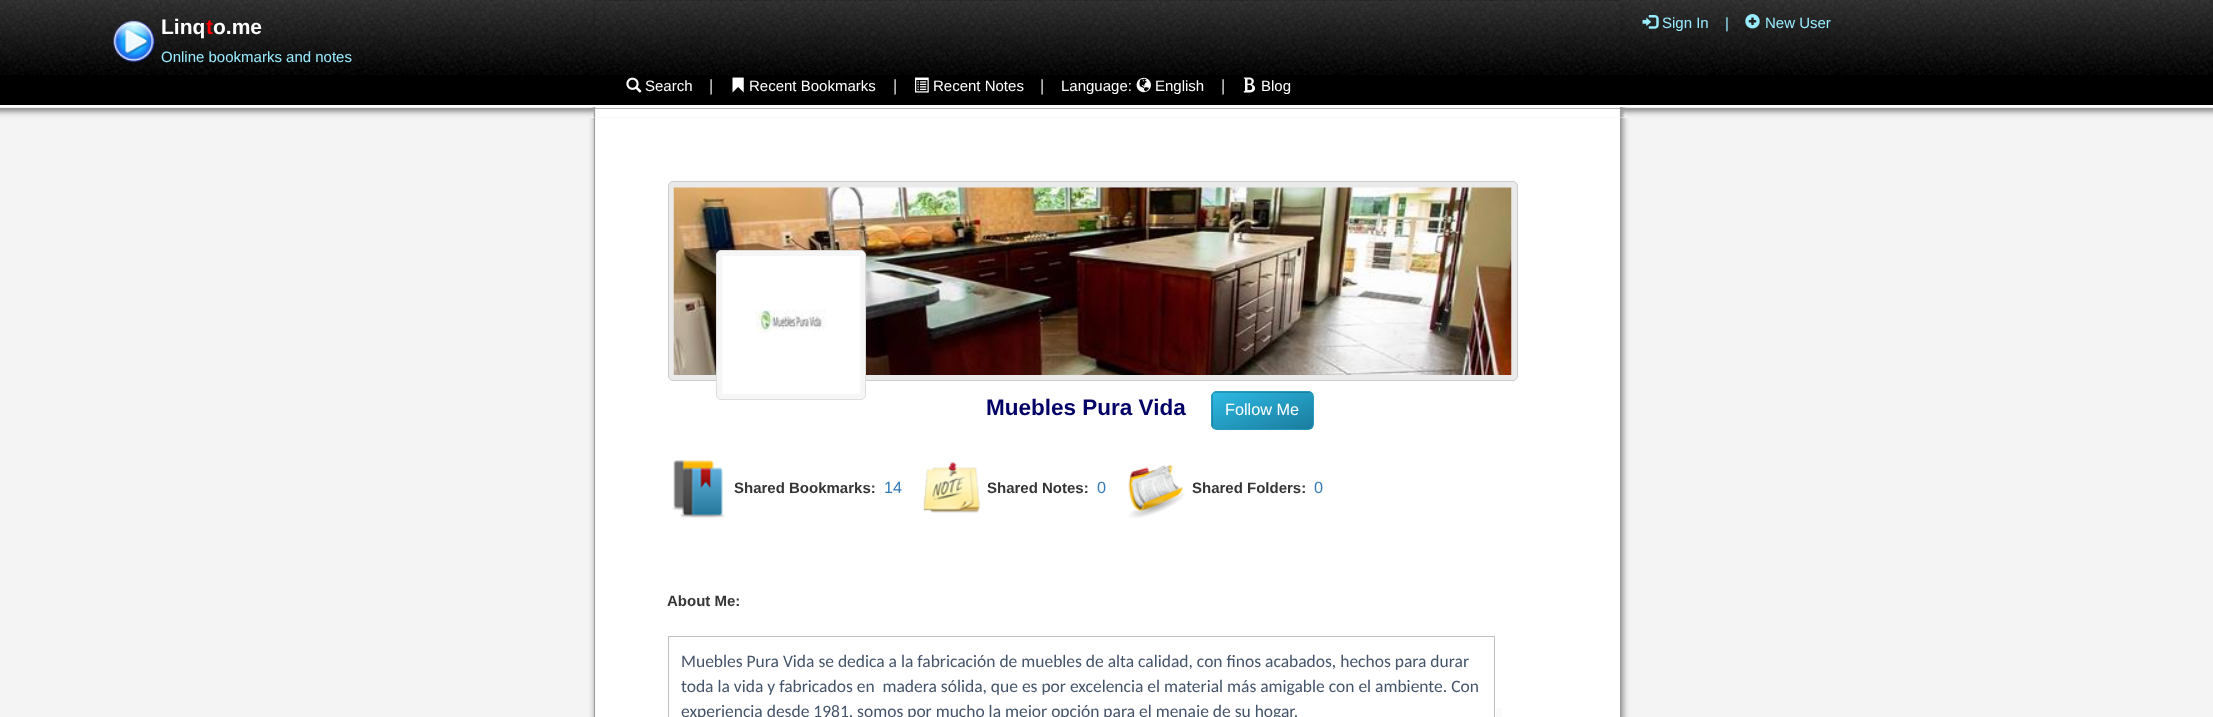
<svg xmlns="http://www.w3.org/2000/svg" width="2213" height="717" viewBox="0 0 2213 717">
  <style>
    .t1 { font: bold 21px Liberation Sans; fill: #fff; }
    .t2 { font: bold 21px Liberation Sans; fill: #f00; }
    .t3 { font: 15px Liberation Sans; fill: #99ecff; }
    .t4 { font: 15px Liberation Sans; fill: #fff; }
    .t5 { font: 16.25px Liberation Sans; fill: #ddd; }
    .t6 { font: bold 22.5px Liberation Sans; fill: #006; }
    .t7 { font: 16.25px Liberation Sans; fill: #fff; }
    .t8 { font: bold 15px Liberation Sans; fill: #353535; }
    .t9 { font: 16.25px Liberation Sans; fill: #337ab7; }
    .t10 { font: 17.5px Carlito; fill: #44546a; }
  </style>
  <defs>
    <clipPath id="clip1"><rect x="1211" y="391" width="103" height="39" rx="6"/></clipPath>
    <linearGradient id="g1" gradientUnits="userSpaceOnUse" x1="1151" y1="342" x2="1174" y2="406"><stop offset="0" stop-color="#2db9e3"/><stop offset="1" stop-color="#1a7c9d"/></linearGradient>
    <linearGradient id="g2" gradientUnits="userSpaceOnUse" x1="1251" y1="342" x2="1274" y2="406"><stop offset="0" stop-color="#2db9e3"/><stop offset="1" stop-color="#1a7c9d"/></linearGradient>
    <linearGradient id="g3" gradientUnits="userSpaceOnUse" x1="1151" y1="379" x2="1174" y2="443"><stop offset="0" stop-color="#2db9e3"/><stop offset="1" stop-color="#1a7c9d"/></linearGradient>
    <linearGradient id="g4" gradientUnits="userSpaceOnUse" x1="1251" y1="379" x2="1274" y2="443"><stop offset="0" stop-color="#2db9e3"/><stop offset="1" stop-color="#1a7c9d"/></linearGradient>
  </defs>
  <rect width="100%" height="100%" fill="#f4f4f4"/>
  <rect x="595" y="1" width="1028" height="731" rx="6" fill="#888" filter="blur(3px)"/>
  <rect x="594.5" y="0.5" width="1026" height="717" fill="#fff" stroke="#999"/>
  <image x="0" y="0" width="2213" height="75" href="images/1.png"/>
  <image x="112" y="20" width="43" height="43" href="images/2.png"/>
  <text x="161" y="34" class="t1">Linq</text>
  <text x="206" y="34" class="t2">t</text>
  <text x="213" y="34" class="t1">o.me</text>
  <text x="161" y="62" class="t3">Online bookmarks and notes</text>
  <image x="1642" y="15" width="17" height="14" href="images/3.png"/>
  <text x="1662" y="28" class="t3">Sign In</text>
  <text x="1725" y="28" class="t3">|</text>
  <image x="1745" y="14" width="15" height="15" href="images/4.png"/>
  <text x="1765" y="28" class="t3">New User</text>
  <rect x="0" y="75" width="2213" height="30" fill="#000"/>
  <rect x="0" y="105" width="2213" height="2" fill="#fff"/>
  <image x="626" y="77" width="16" height="16" href="images/5.png"/>
  <text x="645" y="91" class="t4">Search</text>
  <text x="709" y="91" class="t5">|</text>
  <image x="732" y="77" width="12" height="16" href="images/6.png"/>
  <text x="749" y="91" class="t4">Recent Bookmarks</text>
  <text x="893" y="91" class="t5">|</text>
  <image x="915" y="77" width="14" height="16" href="images/7.png"/>
  <text x="933" y="91" class="t4">Recent Notes</text>
  <text x="1040" y="91" class="t5">|</text>
  <text x="1061" y="91" class="t4">Language:</text>
  <image x="1136" y="77" width="15" height="16" href="images/8.png"/>
  <text x="1155" y="91" class="t4">English</text>
  <text x="1221" y="91" class="t5">|</text>
  <image x="1243" y="77" width="13" height="16" href="images/9.png"/>
  <text x="1261" y="91" class="t4">Blog</text>
  <image x="0" y="108" width="2213" height="10" href="images/10.png"/>
  <image x="593" y="108" width="1032" height="10" href="images/11.png"/>
  <rect x="668.5" y="181.5" width="849" height="199" rx="4.5" fill="#eaeaea" stroke="#ccc"/>
  <image x="673" y="187" width="839" height="188" href="images/12.png"/>
  <rect x="716.5" y="250.5" width="149" height="149" rx="4.5" fill="#f6f6f6" stroke="#ddd"/>
  <image x="722" y="256" width="138" height="138" href="images/13.png"/>
  <text x="986" y="415" class="t6">Muebles Pura Vida</text>
  <g clip-path="url(#clip1)">
    <rect x="1211" y="392" width="2" height="1" fill="url(#g1)"/>
    <rect x="1213" y="391" width="100" height="2" fill="url(#g2)"/>
    <rect x="1211" y="393" width="2" height="36" fill="url(#g3)"/>
    <rect x="1213" y="393" width="100" height="36" fill="url(#g4)"/>
  </g>
  <rect x="1211.5" y="391.5" width="102" height="38" rx="5.5" fill="none" stroke="#269abc"/>
  <text x="1225" y="415" class="t7">Follow Me</text>
  <image x="672" y="460" width="52" height="58" href="images/14.png"/>
  <text x="734" y="493" class="t8">Shared Bookmarks:</text>
  <text x="884" y="493" class="t9">14</text>
  <image x="923" y="462" width="58" height="51" href="images/15.png"/>
  <text x="987" y="493" class="t8">Shared Notes:</text>
  <text x="1097" y="493" class="t9">0</text>
  <image x="1128" y="465" width="57" height="53" href="images/16.png"/>
  <text x="1192" y="493" class="t8">Shared Folders:</text>
  <text x="1314" y="493" class="t9">0</text>
  <text x="667" y="606" class="t8">About Me:</text>
  <rect x="1496" y="708" width="6" height="9" fill="#fafafa"/>
  <rect x="668.5" y="636.5" width="826" height="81" fill="none" stroke="#c0c0c0"/>
  <text x="681" y="667" class="t10">Muebles Pura Vida se dedica a la fabricación de muebles de alta calidad, con finos acabados, hechos para durar</text>
  <text x="681" y="692" class="t10" xml:space="preserve">toda la vida y fabricados en  madera sólida, que es por excelencia el material más amigable con el ambiente. Con</text>
  <text x="681" y="717" class="t10">experiencia desde 1981, somos por mucho la mejor opción para el menaje de su hogar.</text>
</svg>
